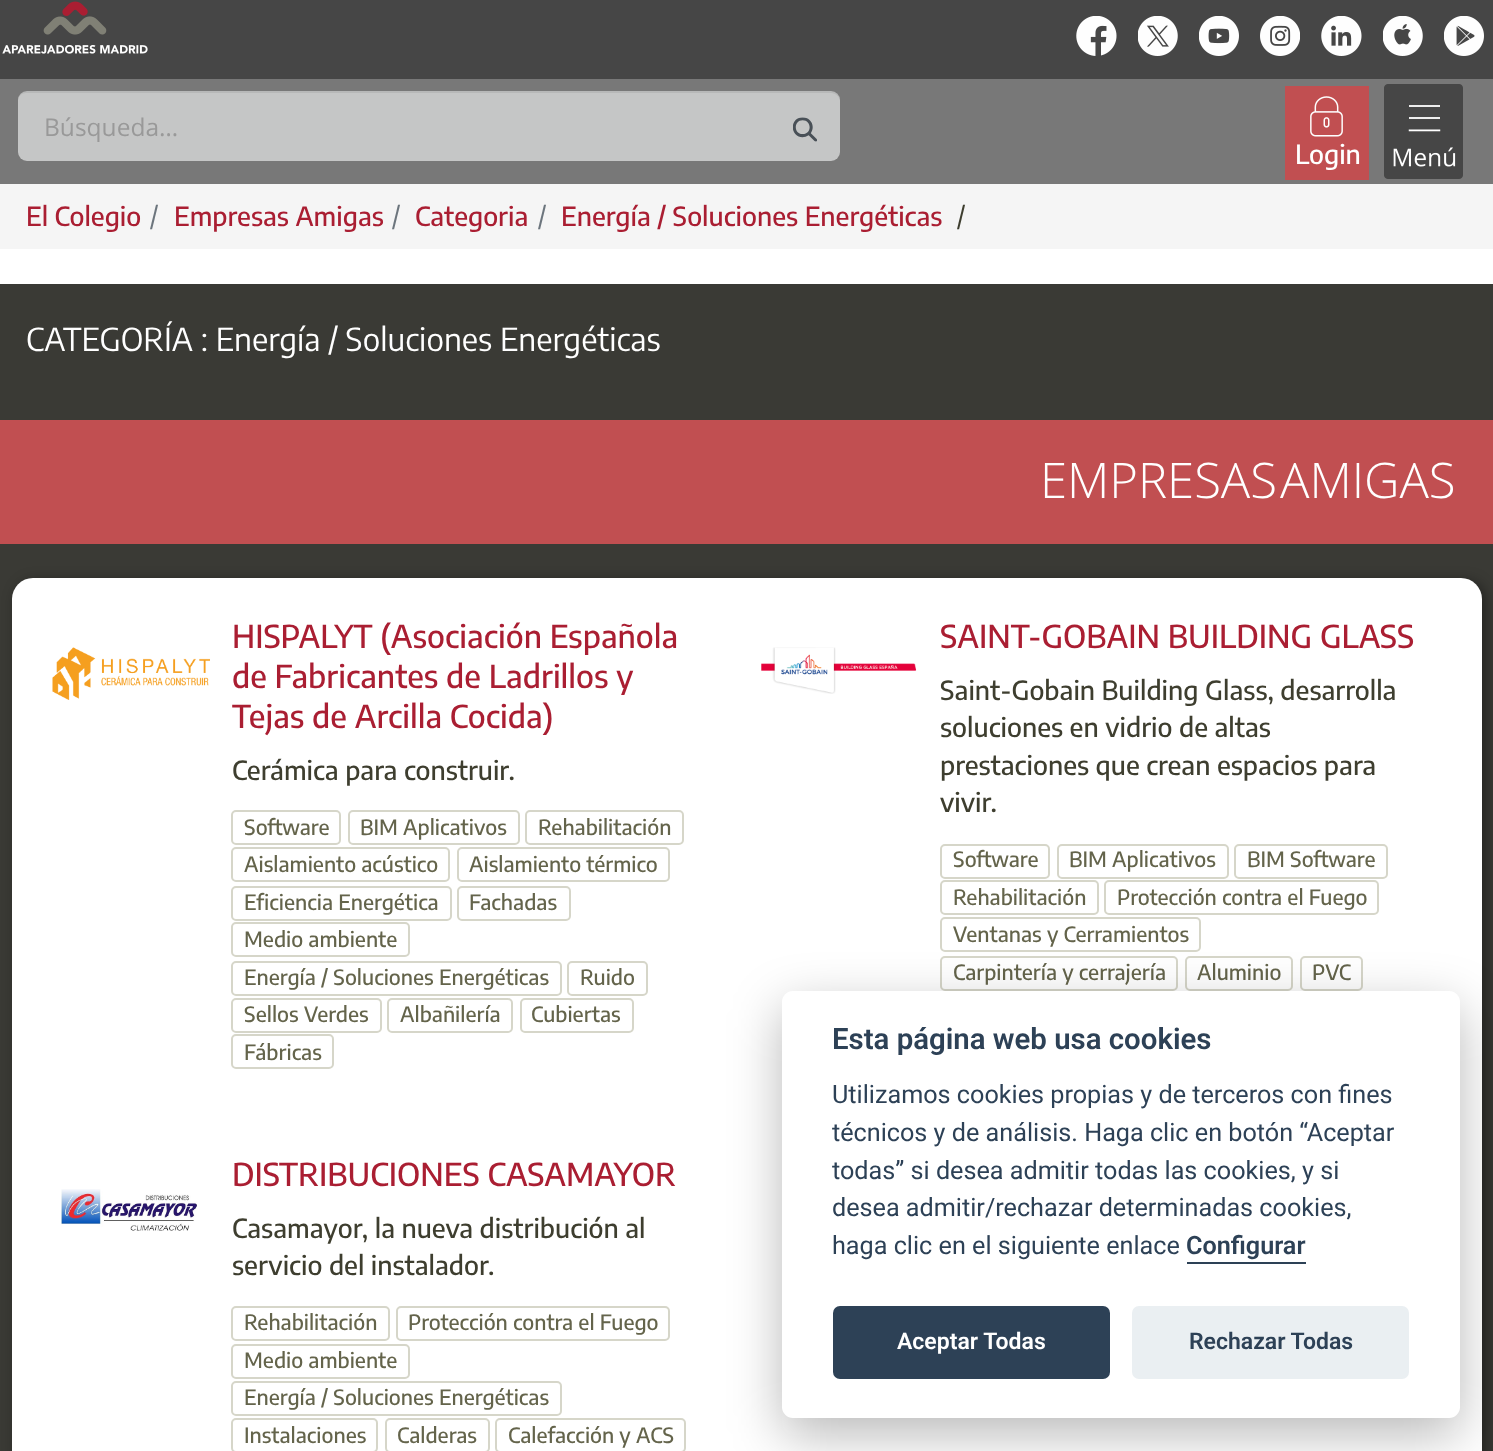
<svg xmlns="http://www.w3.org/2000/svg" width="1493" height="1451" viewBox="0 0 1493 1451">
  <style>
    .t1 { font: 24.5px Open Sans; fill: #999; }
    .t2 { font: 500 26.25px Encode Sans; fill: #fff; }
    .t3 { font: 500 26.25px Encode Sans; fill: #aa1e32; }
    .t4 { font: 26.25px Encode Sans; fill: #6c757d; }
    .t5 { font: 26.25px Encode Sans; fill: #3e3e2f; }
    .t6 { font: 31.5px Encode Sans; fill: #fff; }
    .t7 { font: 300 49px Open Sans; fill: #fff; }
    .t8 { font: 500 31.5px Encode Sans; fill: #aa1e32; }
    .t9 { font: 500 26.25px Encode Sans; fill: #3e3e2f; }
    .t10 { font: 500 21px Encode Sans; fill: #64644b; }
    .t11 { font: 600 29.4px Roboto; fill: #2d4156; }
    .t12 { font: 25.2px Roboto; fill: #2d4156; }
    .t13 { font: 600 25.2px Roboto; fill: #2d4156; }
    .t14 { font: 600 23px Roboto; fill: #fff; }
    .t15 { font: 600 23px Roboto; fill: #2d4156; }
  </style>
  <rect width="100%" height="100%" fill="#fff"/>
  <rect x="0" y="0" width="1493" height="79" fill="#464646"/>
  <image x="2" y="1" width="146" height="53" href="images/1.png"/>
  <image x="1076" y="16" width="41" height="40" href="images/2.png"/>
  <image x="1138" y="16" width="40" height="40" href="images/3.png"/>
  <image x="1199" y="16" width="40" height="40" href="images/4.png"/>
  <image x="1260" y="16" width="40" height="40" href="images/5.png"/>
  <image x="1321" y="16" width="41" height="40" href="images/6.png"/>
  <image x="1383" y="16" width="40" height="40" href="images/7.png"/>
  <image x="1444" y="16" width="40" height="40" href="images/8.png"/>
  <rect x="0" y="79" width="1493" height="105" fill="#787878"/>
  <rect x="18" y="91" width="822" height="70" rx="9" fill="#c5c6c6"/>
  <path d="M26 93H831C836 93 840 97 840 102C840 96 837 91 831 91H27C21 91 18 96 18 102C18 97 21 93 26 93Z" fill="#00000012"/>
  <text x="44" y="136" class="t1">Búsqueda…</text>
  <image x="793" y="117" width="24" height="25" href="images/9.png"/>
  <rect x="1285" y="86" width="84" height="94" fill="#c14f51"/>
  <image x="1310" y="96" width="33" height="41" href="images/10.png"/>
  <text x="1295" y="164" class="t2">Login</text>
  <image x="1384" y="84" width="79" height="95" href="images/11.png"/>
  <rect x="0" y="184" width="1493" height="65" fill="#f5f5f5"/>
  <text x="26" y="226" class="t3">El Colegio</text>
  <text x="150" y="226" class="t4">/</text>
  <text x="174" y="226" class="t3">Empresas Amigas</text>
  <text x="392" y="226" class="t4">/</text>
  <text x="415" y="226" class="t3">Categoria</text>
  <text x="538" y="226" class="t4">/</text>
  <text x="561" y="226" class="t3">Energía / Soluciones Energéticas</text>
  <text x="957" y="226" class="t5">/</text>
  <rect x="0" y="284" width="1493" height="136" fill="#3a3a35"/>
  <text x="26" y="351" class="t6">CATEGORÍA : Energía / Soluciones Energéticas</text>
  <rect x="0" y="544" width="1493" height="907" fill="#3a3a35"/>
  <rect x="0" y="420" width="1493" height="124" fill="#c14f51"/>
  <rect x="16" y="581" width="1470" height="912" rx="21" fill="#00000066" filter="blur(7px)"/>
  <rect x="12" y="578" width="1470" height="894" rx="21" fill="#fff"/>
  <text x="1040" y="498" class="t7">EMPRESAS</text>
  <text x="1280" y="498" class="t7">AMIGAS</text>
  <image x="52" y="647" width="158" height="53" href="images/12.png"/>
  <text x="232" y="648" class="t8">HISPALYT (Asociación Española</text>
  <text x="232" y="688" class="t8">de Fabricantes de Ladrillos y</text>
  <text x="232" y="728" class="t8">Tejas de Arcilla Cocida)</text>
  <text x="232" y="780" class="t9">Cerámica para construir.</text>
  <rect x="232" y="811" width="108" height="33" rx="4" fill="none" stroke="#d6d6c9" stroke-width="2"/>
  <text x="244" y="835" class="t10">Software</text>
  <rect x="349" y="811" width="170" height="33" rx="4" fill="none" stroke="#d6d6c9" stroke-width="2"/>
  <text x="360" y="835" class="t10">BIM Aplicativos</text>
  <rect x="526" y="811" width="157" height="33" rx="4" fill="none" stroke="#d6d6c9" stroke-width="2"/>
  <text x="538" y="835" class="t10">Rehabilitación</text>
  <rect x="232" y="848" width="217" height="33" rx="4" fill="none" stroke="#d6d6c9" stroke-width="2"/>
  <text x="244" y="872" class="t10">Aislamiento acústico</text>
  <rect x="458" y="848" width="211" height="33" rx="4" fill="none" stroke="#d6d6c9" stroke-width="2"/>
  <text x="469" y="872" class="t10">Aislamiento térmico</text>
  <rect x="232" y="887" width="219" height="33" rx="4" fill="none" stroke="#d6d6c9" stroke-width="2"/>
  <text x="244" y="910" class="t10">Eficiencia Energética</text>
  <rect x="458" y="887" width="112" height="33" rx="4" fill="none" stroke="#d6d6c9" stroke-width="2"/>
  <text x="469" y="910" class="t10">Fachadas</text>
  <rect x="232" y="923" width="177" height="33" rx="4" fill="none" stroke="#d6d6c9" stroke-width="2"/>
  <text x="244" y="947" class="t10">Medio ambiente</text>
  <rect x="232" y="962" width="329" height="33" rx="4" fill="none" stroke="#d6d6c9" stroke-width="2"/>
  <text x="244" y="985" class="t10">Energía / Soluciones Energéticas</text>
  <rect x="568" y="962" width="79" height="33" rx="4" fill="none" stroke="#d6d6c9" stroke-width="2"/>
  <text x="580" y="985" class="t10">Ruido</text>
  <rect x="232" y="999" width="149" height="33" rx="4" fill="none" stroke="#d6d6c9" stroke-width="2"/>
  <text x="244" y="1022" class="t10">Sellos Verdes</text>
  <rect x="388" y="999" width="124" height="33" rx="4" fill="none" stroke="#d6d6c9" stroke-width="2"/>
  <text x="400" y="1022" class="t10">Albañilería</text>
  <rect x="521" y="999" width="112" height="33" rx="4" fill="none" stroke="#d6d6c9" stroke-width="2"/>
  <text x="531" y="1022" class="t10">Cubiertas</text>
  <rect x="232" y="1035" width="101" height="33" rx="4" fill="none" stroke="#d6d6c9" stroke-width="2"/>
  <text x="244" y="1060" class="t10">Fábricas</text>
  <image x="761" y="647" width="156" height="47" href="images/13.png"/>
  <text x="940" y="648" class="t8">SAINT-GOBAIN BUILDING GLASS</text>
  <text x="940" y="700" class="t9">Saint-Gobain Building Glass, desarrolla</text>
  <text x="940" y="737" class="t9">soluciones en vidrio de altas</text>
  <text x="940" y="775" class="t9">prestaciones que crean espacios para</text>
  <text x="940" y="812" class="t9">vivir.</text>
  <rect x="941" y="845" width="108" height="33" rx="4" fill="none" stroke="#d6d6c9" stroke-width="2"/>
  <text x="953" y="867" class="t10">Software</text>
  <rect x="1058" y="845" width="170" height="33" rx="4" fill="none" stroke="#d6d6c9" stroke-width="2"/>
  <text x="1069" y="867" class="t10">BIM Aplicativos</text>
  <rect x="1235" y="845" width="152" height="33" rx="4" fill="none" stroke="#d6d6c9" stroke-width="2"/>
  <text x="1247" y="867" class="t10">BIM Software</text>
  <rect x="941" y="881" width="157" height="33" rx="4" fill="none" stroke="#d6d6c9" stroke-width="2"/>
  <text x="953" y="905" class="t10">Rehabilitación</text>
  <rect x="1105" y="881" width="273" height="33" rx="4" fill="none" stroke="#d6d6c9" stroke-width="2"/>
  <text x="1117" y="905" class="t10">Protección contra el Fuego</text>
  <rect x="941" y="918" width="259" height="33" rx="4" fill="none" stroke="#d6d6c9" stroke-width="2"/>
  <text x="953" y="942" class="t10">Ventanas y Cerramientos</text>
  <rect x="941" y="957" width="236" height="33" rx="4" fill="none" stroke="#d6d6c9" stroke-width="2"/>
  <text x="953" y="980" class="t10">Carpintería y cerrajería</text>
  <rect x="1186" y="957" width="106" height="33" rx="4" fill="none" stroke="#d6d6c9" stroke-width="2"/>
  <text x="1197" y="980" class="t10">Aluminio</text>
  <rect x="1301" y="957" width="61" height="33" rx="4" fill="none" stroke="#d6d6c9" stroke-width="2"/>
  <text x="1312" y="980" class="t10">PVC</text>
  <image x="61" y="1189" width="136" height="42" href="images/14.png"/>
  <text x="232" y="1186" class="t8">DISTRIBUCIONES CASAMAYOR</text>
  <text x="232" y="1238" class="t9">Casamayor, la nueva distribución al</text>
  <text x="232" y="1275" class="t9">servicio del instalador.</text>
  <rect x="232" y="1307" width="157" height="33" rx="4" fill="none" stroke="#d6d6c9" stroke-width="2"/>
  <text x="244" y="1330" class="t10">Rehabilitación</text>
  <rect x="397" y="1307" width="272" height="33" rx="4" fill="none" stroke="#d6d6c9" stroke-width="2"/>
  <text x="408" y="1330" class="t10">Protección contra el Fuego</text>
  <rect x="232" y="1345" width="177" height="33" rx="4" fill="none" stroke="#d6d6c9" stroke-width="2"/>
  <text x="244" y="1368" class="t10">Medio ambiente</text>
  <rect x="232" y="1382" width="329" height="33" rx="4" fill="none" stroke="#d6d6c9" stroke-width="2"/>
  <text x="244" y="1405" class="t10">Energía / Soluciones Energéticas</text>
  <rect x="232" y="1419" width="145" height="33" rx="4" fill="none" stroke="#d6d6c9" stroke-width="2"/>
  <text x="244" y="1443" class="t10">Instalaciones</text>
  <rect x="386" y="1419" width="103" height="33" rx="4" fill="none" stroke="#d6d6c9" stroke-width="2"/>
  <text x="397" y="1443" class="t10">Calderas</text>
  <rect x="496" y="1419" width="189" height="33" rx="4" fill="none" stroke="#d6d6c9" stroke-width="2"/>
  <text x="508" y="1443" class="t10">Calefacción y ACS</text>
  <rect x="782" y="1008" width="678" height="427" rx="11" fill="#02020347" filter="blur(26px)"/>
  <rect x="782" y="991" width="678" height="427" rx="11" fill="#fff"/>
  <text x="832" y="1049" class="t11">Esta página web usa cookies</text>
  <text x="832" y="1103" class="t12">Utilizamos cookies propias y de terceros con fines</text>
  <text x="832" y="1141" class="t12">técnicos y de análisis. Haga clic en botón “Aceptar</text>
  <text x="832" y="1179" class="t12">todas” si desea admitir todas las cookies, y si</text>
  <text x="832" y="1216" class="t12">desea admitir/rechazar determinadas cookies,</text>
  <text x="832" y="1254" class="t12">haga clic en el siguiente enlace</text>
  <text x="1186" y="1254" class="t13">Configurar</text>
  <rect x="1187" y="1262" width="119" height="2" fill="#2d4156"/>
  <rect x="833" y="1306" width="277" height="73" rx="7" fill="#2d4156"/>
  <text x="897" y="1349" class="t14">Aceptar Todas</text>
  <rect x="1132" y="1306" width="277" height="73" rx="7" fill="#eaeff2"/>
  <text x="1189" y="1349" class="t15">Rechazar Todas</text>
</svg>
